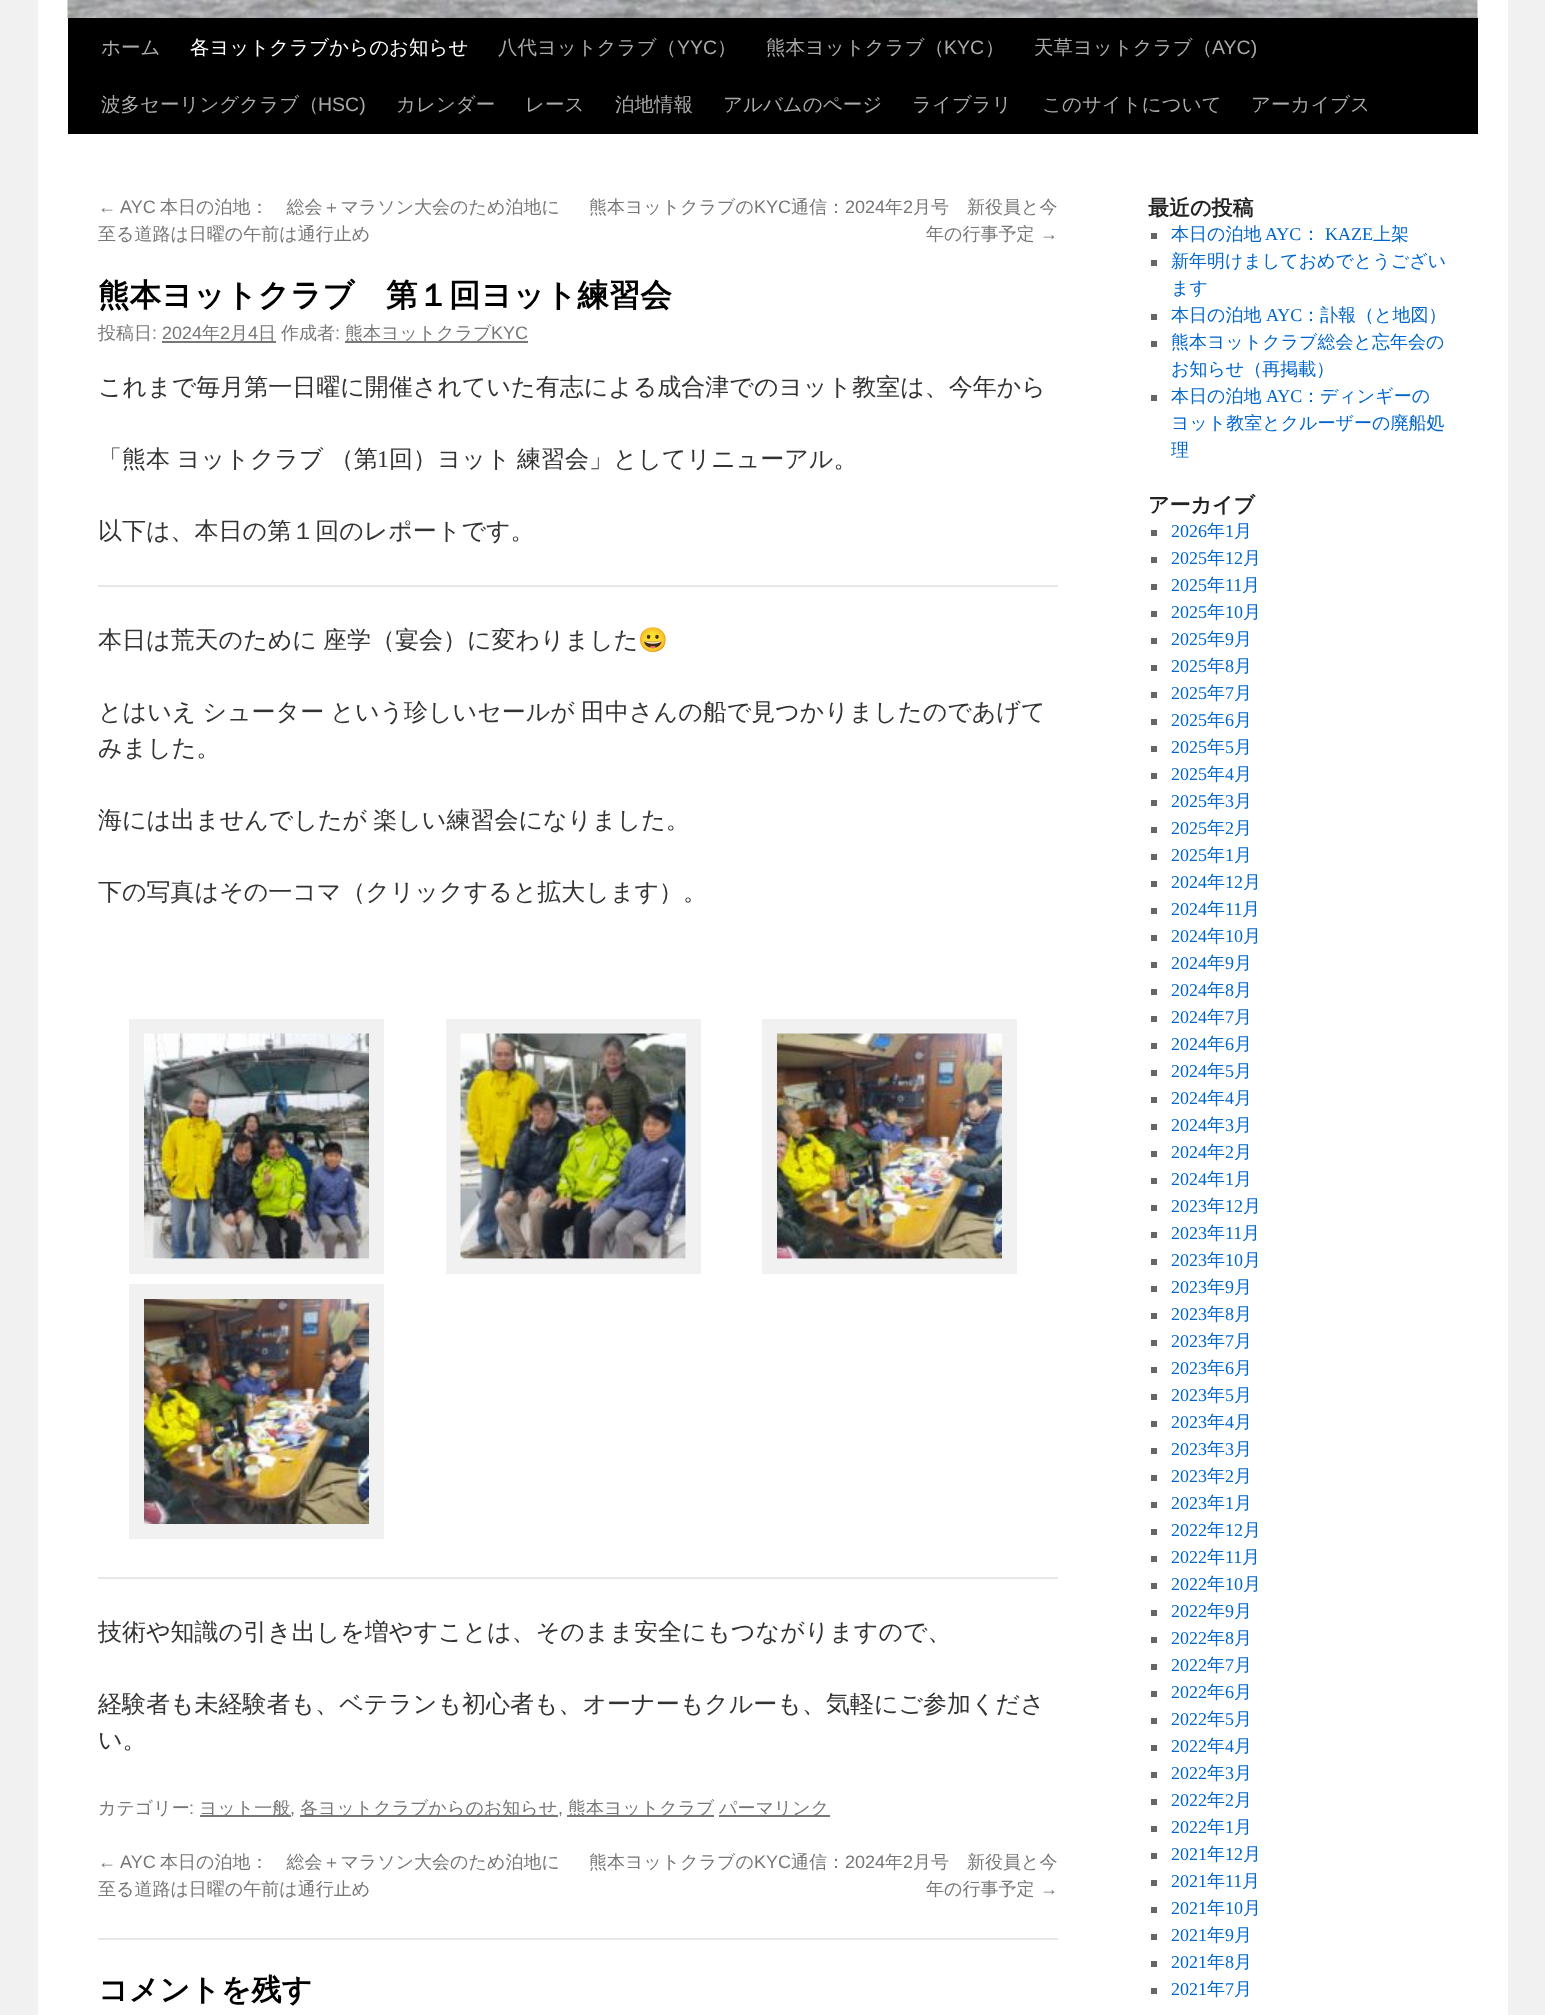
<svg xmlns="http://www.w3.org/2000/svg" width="1545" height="2015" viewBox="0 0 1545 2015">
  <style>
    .t1 { font: 500 19.5px WenQuanYi Zen Hei; fill: #aaa; }
    .t2 { font: 500 19.5px WenQuanYi Zen Hei; fill: #fff; }
    .t3 { font: 19.5px Liberation Sans; fill: #aaa; }
    .t4 { font: 18px Liberation Sans; fill: #777; }
    .t5 { font: 500 18px WenQuanYi Zen Hei; fill: #777; }
    .t6 { font: bold 31.5px WenQuanYi Zen Hei; fill: #000; }
    .t7 { font: 500 24px WenQuanYi Zen Hei; fill: #333; }
    .t8 { font: 24px Liberation Serif; fill: #333; }
    .t9 { font: 24px Noto Color Emoji; fill: #333; }
    .t10 { font: bold 30px WenQuanYi Zen Hei; fill: #000; }
    .t11 { font: bold 21px WenQuanYi Zen Hei; fill: #222; }
    .t12 { font: 500 18px WenQuanYi Zen Hei; fill: #06c; }
    .t13 { font: 18px Liberation Serif; fill: #06c; }
  </style>
  <rect width="100%" height="100%" fill="#f1f1f1"/>
  <rect x="38" y="0" width="1470" height="2015" fill="#fff"/>
  <rect x="68" y="18" width="1410" height="116" fill="#000"/>
  <image x="67" y="0" width="1411" height="18" href="images/1.png"/>
  <text x="101" y="54" class="t1">ホーム</text>
  <text x="190" y="54" class="t2">各ヨットクラブからのお知らせ</text>
  <text x="498" y="54" class="t1">八代ヨットクラブ（</text>
  <text x="677" y="54" class="t3">YYC</text>
  <text x="717" y="54" class="t1">）</text>
  <text x="766" y="54" class="t1">熊本ヨットクラブ（</text>
  <text x="944" y="54" class="t3">KYC</text>
  <text x="985" y="54" class="t1">）</text>
  <text x="1034" y="54" class="t1">天草ヨットクラブ（</text>
  <text x="1212" y="54" class="t3">AYC)</text>
  <text x="101" y="111" class="t1">波多セーリングクラブ（</text>
  <text x="318" y="111" class="t3">HSC)</text>
  <text x="396" y="111" class="t1">カレンダー</text>
  <text x="525" y="111" class="t1">レース</text>
  <text x="615" y="111" class="t1">泊地情報</text>
  <text x="723" y="111" class="t1">アルバムのページ</text>
  <text x="912" y="111" class="t1">ライブラリ</text>
  <text x="1042" y="111" class="t1">このサイトについて</text>
  <text x="1251" y="111" class="t1">アーカイブス</text>
  <text x="98" y="213" class="t4">←</text>
  <text x="120" y="213" class="t4">AYC</text>
  <text x="160" y="213" class="t5">本日の泊地：　総会＋マラソン大会のため泊地に</text>
  <text x="98" y="240" class="t5">至る道路は日曜の午前は通行止め</text>
  <text x="589" y="213" class="t5">熊本ヨットクラブの</text>
  <text x="754" y="213" class="t4">KYC</text>
  <text x="791" y="213" class="t5">通信：</text>
  <text x="845" y="213" class="t4">2024</text>
  <text x="885" y="213" class="t5">年</text>
  <text x="903" y="213" class="t4">2</text>
  <text x="913" y="213" class="t5">月号　新役員と今</text>
  <text x="926" y="240" class="t5">年の行事予定</text>
  <text x="1040" y="240" class="t4">→</text>
  <text x="98" y="306" class="t6">熊本ヨットクラブ　第１回ヨット練習会</text>
  <text x="98" y="339" class="t5">投稿日</text>
  <text x="152" y="339" class="t4">: 2024</text>
  <rect x="162" y="341" width="114" height="2" fill="#777"/>
  <text x="202" y="339" class="t5">年</text>
  <text x="220" y="339" class="t4">2</text>
  <text x="230" y="339" class="t5">月</text>
  <text x="248" y="339" class="t4">4</text>
  <text x="258" y="339" class="t5">日</text>
  <text x="281" y="339" class="t5">作成者</text>
  <text x="335" y="339" class="t4">:</text>
  <rect x="345" y="341" width="183" height="2" fill="#777"/>
  <text x="345" y="339" class="t5">熊本ヨットクラブ</text>
  <text x="491" y="339" class="t4">KYC</text>
  <text x="98" y="395" class="t7">これまで毎月第一日曜に開催されていた有志による成合津でのヨット教室は、今年から</text>
  <text x="98" y="467" word-spacing="-1" class="t7">「熊本 ヨットクラブ （第</text>
  <text x="377" y="467" class="t8">1</text>
  <text x="389" y="467" word-spacing="-1" class="t7">回）ヨット 練習会」としてリニューアル。</text>
  <text x="98" y="539" class="t7">以下は、本日の第１回のレポートです。</text>
  <rect x="98" y="585" width="960" height="2" fill="#e7e7e7"/>
  <text x="98" y="648" word-spacing="-1" class="t7">本日は荒天のために 座学（宴会）に変わりました</text>
  <text x="638" y="648" class="t9">😀</text>
  <text x="98" y="720" word-spacing="-1" class="t7">とはいえ シューター という珍しいセールが 田中さんの船で見つかりましたのであげて</text>
  <text x="98" y="756" class="t7">みました。</text>
  <text x="98" y="828" word-spacing="-1" class="t7">海には出ませんでしたが 楽しい練習会になりました。</text>
  <text x="98" y="900" class="t7">下の写真はその一コマ（クリックすると拡大します）。</text>
  <rect x="136.5" y="1026.5" width="240" height="240" fill="none" stroke="#f1f1f1" stroke-width="15"/>
  <image x="144" y="1033" width="225" height="226" href="images/2.png"/>
  <rect x="453.5" y="1026.5" width="240" height="240" fill="none" stroke="#f1f1f1" stroke-width="15"/>
  <image x="460" y="1033" width="226" height="226" href="images/3.png"/>
  <rect x="769.5" y="1026.5" width="240" height="240" fill="none" stroke="#f1f1f1" stroke-width="15"/>
  <image x="777" y="1033" width="225" height="226" href="images/4.png"/>
  <rect x="136.5" y="1291.5" width="240" height="240" fill="none" stroke="#f1f1f1" stroke-width="15"/>
  <image x="144" y="1299" width="225" height="225" href="images/5.png"/>
  <rect x="98" y="1577" width="960" height="2" fill="#e7e7e7"/>
  <text x="98" y="1640" class="t7">技術や知識の引き出しを増やすことは、そのまま安全にもつながりますので、</text>
  <text x="98" y="1712" class="t7">経験者も未経験者も、ベテランも初心者も、オーナーもクルーも、気軽にご参加くださ</text>
  <text x="98" y="1748" class="t7">い。</text>
  <text x="98" y="1814" class="t5">カテゴリー</text>
  <text x="189" y="1814" class="t4">:</text>
  <rect x="200" y="1815" width="91" height="2" fill="#777"/>
  <text x="199" y="1814" class="t5">ヨット一般</text>
  <rect x="300" y="1815" width="258" height="2" fill="#777"/>
  <text x="300" y="1814" class="t5">各ヨットクラブからのお知らせ</text>
  <rect x="567" y="1815" width="147" height="2" fill="#777"/>
  <text x="568" y="1814" class="t5">熊本ヨットクラブ</text>
  <rect x="719" y="1815" width="111" height="2" fill="#777"/>
  <text x="719" y="1814" class="t5">パーマリンク</text>
  <text x="290" y="1814" class="t4">,</text>
  <text x="558" y="1814" class="t4">,</text>
  <text x="98" y="1868" class="t4">←</text>
  <text x="120" y="1868" class="t4">AYC</text>
  <text x="160" y="1868" class="t5">本日の泊地：　総会＋マラソン大会のため泊地に</text>
  <text x="98" y="1895" class="t5">至る道路は日曜の午前は通行止め</text>
  <text x="589" y="1868" class="t5">熊本ヨットクラブの</text>
  <text x="754" y="1868" class="t4">KYC</text>
  <text x="791" y="1868" class="t5">通信：</text>
  <text x="845" y="1868" class="t4">2024</text>
  <text x="885" y="1868" class="t5">年</text>
  <text x="903" y="1868" class="t4">2</text>
  <text x="913" y="1868" class="t5">月号　新役員と今</text>
  <text x="926" y="1895" class="t5">年の行事予定</text>
  <text x="1040" y="1895" class="t4">→</text>
  <rect x="98" y="1938" width="960" height="2" fill="#e7e7e7"/>
  <text x="98" y="2000" class="t10">コメントを残す</text>
  <text x="1148" y="215" class="t11">最近の投稿</text>
  <rect x="1151" y="233" width="6" height="6" fill="#666"/>
  <text x="1171" y="240" class="t12">本日の泊地</text>
  <text x="1265" y="240" class="t13">AYC</text>
  <text x="1302" y="240" class="t12">：</text>
  <text x="1325" y="240" class="t13">KAZE</text>
  <text x="1373" y="240" class="t12">上架</text>
  <rect x="1151" y="260" width="6" height="6" fill="#666"/>
  <text x="1171" y="267" class="t12">新年明けましておめでとうござい</text>
  <text x="1171" y="294" class="t12">ます</text>
  <rect x="1151" y="314" width="6" height="6" fill="#666"/>
  <text x="1171" y="321" class="t12">本日の泊地</text>
  <text x="1266" y="321" class="t13">AYC</text>
  <text x="1302" y="321" class="t12">：訃報（と地図）</text>
  <rect x="1151" y="341" width="6" height="6" fill="#666"/>
  <text x="1171" y="348" class="t12">熊本ヨットクラブ総会と忘年会の</text>
  <text x="1171" y="375" class="t12">お知らせ（再掲載）</text>
  <rect x="1151" y="395" width="6" height="6" fill="#666"/>
  <text x="1171" y="402" class="t12">本日の泊地</text>
  <text x="1266" y="402" class="t13">AYC</text>
  <text x="1302" y="402" class="t12">：ディンギーの</text>
  <text x="1171" y="429" class="t12">ヨット教室とクルーザーの廃船処</text>
  <text x="1171" y="456" class="t12">理</text>
  <text x="1148" y="512" class="t11">アーカイブ</text>
  <rect x="1151" y="530" width="6" height="6" fill="#666"/>
  <text x="1171" y="537" class="t13">2026</text>
  <text x="1207" y="537" class="t12">年</text>
  <text x="1225" y="537" class="t13">1</text>
  <text x="1234" y="537" class="t12">月</text>
  <rect x="1151" y="557" width="6" height="6" fill="#666"/>
  <text x="1171" y="564" class="t13">2025</text>
  <text x="1207" y="564" class="t12">年</text>
  <text x="1225" y="564" class="t13">12</text>
  <text x="1243" y="564" class="t12">月</text>
  <rect x="1151" y="584" width="6" height="6" fill="#666"/>
  <text x="1171" y="591" class="t13">2025</text>
  <text x="1207" y="591" class="t12">年</text>
  <text x="1225" y="591" class="t13">11</text>
  <text x="1242" y="591" class="t12">月</text>
  <rect x="1151" y="611" width="6" height="6" fill="#666"/>
  <text x="1171" y="618" class="t13">2025</text>
  <text x="1207" y="618" class="t12">年</text>
  <text x="1225" y="618" class="t13">10</text>
  <text x="1243" y="618" class="t12">月</text>
  <rect x="1151" y="638" width="6" height="6" fill="#666"/>
  <text x="1171" y="645" class="t13">2025</text>
  <text x="1207" y="645" class="t12">年</text>
  <text x="1225" y="645" class="t13">9</text>
  <text x="1234" y="645" class="t12">月</text>
  <rect x="1151" y="665" width="6" height="6" fill="#666"/>
  <text x="1171" y="672" class="t13">2025</text>
  <text x="1207" y="672" class="t12">年</text>
  <text x="1225" y="672" class="t13">8</text>
  <text x="1234" y="672" class="t12">月</text>
  <rect x="1151" y="692" width="6" height="6" fill="#666"/>
  <text x="1171" y="699" class="t13">2025</text>
  <text x="1207" y="699" class="t12">年</text>
  <text x="1225" y="699" class="t13">7</text>
  <text x="1234" y="699" class="t12">月</text>
  <rect x="1151" y="719" width="6" height="6" fill="#666"/>
  <text x="1171" y="726" class="t13">2025</text>
  <text x="1207" y="726" class="t12">年</text>
  <text x="1225" y="726" class="t13">6</text>
  <text x="1234" y="726" class="t12">月</text>
  <rect x="1151" y="746" width="6" height="6" fill="#666"/>
  <text x="1171" y="753" class="t13">2025</text>
  <text x="1207" y="753" class="t12">年</text>
  <text x="1225" y="753" class="t13">5</text>
  <text x="1234" y="753" class="t12">月</text>
  <rect x="1151" y="773" width="6" height="6" fill="#666"/>
  <text x="1171" y="780" class="t13">2025</text>
  <text x="1207" y="780" class="t12">年</text>
  <text x="1225" y="780" class="t13">4</text>
  <text x="1234" y="780" class="t12">月</text>
  <rect x="1151" y="800" width="6" height="6" fill="#666"/>
  <text x="1171" y="807" class="t13">2025</text>
  <text x="1207" y="807" class="t12">年</text>
  <text x="1225" y="807" class="t13">3</text>
  <text x="1234" y="807" class="t12">月</text>
  <rect x="1151" y="827" width="6" height="6" fill="#666"/>
  <text x="1171" y="834" class="t13">2025</text>
  <text x="1207" y="834" class="t12">年</text>
  <text x="1225" y="834" class="t13">2</text>
  <text x="1234" y="834" class="t12">月</text>
  <rect x="1151" y="854" width="6" height="6" fill="#666"/>
  <text x="1171" y="861" class="t13">2025</text>
  <text x="1207" y="861" class="t12">年</text>
  <text x="1225" y="861" class="t13">1</text>
  <text x="1234" y="861" class="t12">月</text>
  <rect x="1151" y="881" width="6" height="6" fill="#666"/>
  <text x="1171" y="888" class="t13">2024</text>
  <text x="1207" y="888" class="t12">年</text>
  <text x="1225" y="888" class="t13">12</text>
  <text x="1243" y="888" class="t12">月</text>
  <rect x="1151" y="908" width="6" height="6" fill="#666"/>
  <text x="1171" y="915" class="t13">2024</text>
  <text x="1207" y="915" class="t12">年</text>
  <text x="1225" y="915" class="t13">11</text>
  <text x="1242" y="915" class="t12">月</text>
  <rect x="1151" y="935" width="6" height="6" fill="#666"/>
  <text x="1171" y="942" class="t13">2024</text>
  <text x="1207" y="942" class="t12">年</text>
  <text x="1225" y="942" class="t13">10</text>
  <text x="1243" y="942" class="t12">月</text>
  <rect x="1151" y="962" width="6" height="6" fill="#666"/>
  <text x="1171" y="969" class="t13">2024</text>
  <text x="1207" y="969" class="t12">年</text>
  <text x="1225" y="969" class="t13">9</text>
  <text x="1234" y="969" class="t12">月</text>
  <rect x="1151" y="989" width="6" height="6" fill="#666"/>
  <text x="1171" y="996" class="t13">2024</text>
  <text x="1207" y="996" class="t12">年</text>
  <text x="1225" y="996" class="t13">8</text>
  <text x="1234" y="996" class="t12">月</text>
  <rect x="1151" y="1016" width="6" height="6" fill="#666"/>
  <text x="1171" y="1023" class="t13">2024</text>
  <text x="1207" y="1023" class="t12">年</text>
  <text x="1225" y="1023" class="t13">7</text>
  <text x="1234" y="1023" class="t12">月</text>
  <rect x="1151" y="1043" width="6" height="6" fill="#666"/>
  <text x="1171" y="1050" class="t13">2024</text>
  <text x="1207" y="1050" class="t12">年</text>
  <text x="1225" y="1050" class="t13">6</text>
  <text x="1234" y="1050" class="t12">月</text>
  <rect x="1151" y="1070" width="6" height="6" fill="#666"/>
  <text x="1171" y="1077" class="t13">2024</text>
  <text x="1207" y="1077" class="t12">年</text>
  <text x="1225" y="1077" class="t13">5</text>
  <text x="1234" y="1077" class="t12">月</text>
  <rect x="1151" y="1097" width="6" height="6" fill="#666"/>
  <text x="1171" y="1104" class="t13">2024</text>
  <text x="1207" y="1104" class="t12">年</text>
  <text x="1225" y="1104" class="t13">4</text>
  <text x="1234" y="1104" class="t12">月</text>
  <rect x="1151" y="1124" width="6" height="6" fill="#666"/>
  <text x="1171" y="1131" class="t13">2024</text>
  <text x="1207" y="1131" class="t12">年</text>
  <text x="1225" y="1131" class="t13">3</text>
  <text x="1234" y="1131" class="t12">月</text>
  <rect x="1151" y="1151" width="6" height="6" fill="#666"/>
  <text x="1171" y="1158" class="t13">2024</text>
  <text x="1207" y="1158" class="t12">年</text>
  <text x="1225" y="1158" class="t13">2</text>
  <text x="1234" y="1158" class="t12">月</text>
  <rect x="1151" y="1178" width="6" height="6" fill="#666"/>
  <text x="1171" y="1185" class="t13">2024</text>
  <text x="1207" y="1185" class="t12">年</text>
  <text x="1225" y="1185" class="t13">1</text>
  <text x="1234" y="1185" class="t12">月</text>
  <rect x="1151" y="1205" width="6" height="6" fill="#666"/>
  <text x="1171" y="1212" class="t13">2023</text>
  <text x="1207" y="1212" class="t12">年</text>
  <text x="1225" y="1212" class="t13">12</text>
  <text x="1243" y="1212" class="t12">月</text>
  <rect x="1151" y="1232" width="6" height="6" fill="#666"/>
  <text x="1171" y="1239" class="t13">2023</text>
  <text x="1207" y="1239" class="t12">年</text>
  <text x="1225" y="1239" class="t13">11</text>
  <text x="1242" y="1239" class="t12">月</text>
  <rect x="1151" y="1259" width="6" height="6" fill="#666"/>
  <text x="1171" y="1266" class="t13">2023</text>
  <text x="1207" y="1266" class="t12">年</text>
  <text x="1225" y="1266" class="t13">10</text>
  <text x="1243" y="1266" class="t12">月</text>
  <rect x="1151" y="1286" width="6" height="6" fill="#666"/>
  <text x="1171" y="1293" class="t13">2023</text>
  <text x="1207" y="1293" class="t12">年</text>
  <text x="1225" y="1293" class="t13">9</text>
  <text x="1234" y="1293" class="t12">月</text>
  <rect x="1151" y="1313" width="6" height="6" fill="#666"/>
  <text x="1171" y="1320" class="t13">2023</text>
  <text x="1207" y="1320" class="t12">年</text>
  <text x="1225" y="1320" class="t13">8</text>
  <text x="1234" y="1320" class="t12">月</text>
  <rect x="1151" y="1340" width="6" height="6" fill="#666"/>
  <text x="1171" y="1347" class="t13">2023</text>
  <text x="1207" y="1347" class="t12">年</text>
  <text x="1225" y="1347" class="t13">7</text>
  <text x="1234" y="1347" class="t12">月</text>
  <rect x="1151" y="1367" width="6" height="6" fill="#666"/>
  <text x="1171" y="1374" class="t13">2023</text>
  <text x="1207" y="1374" class="t12">年</text>
  <text x="1225" y="1374" class="t13">6</text>
  <text x="1234" y="1374" class="t12">月</text>
  <rect x="1151" y="1394" width="6" height="6" fill="#666"/>
  <text x="1171" y="1401" class="t13">2023</text>
  <text x="1207" y="1401" class="t12">年</text>
  <text x="1225" y="1401" class="t13">5</text>
  <text x="1234" y="1401" class="t12">月</text>
  <rect x="1151" y="1421" width="6" height="6" fill="#666"/>
  <text x="1171" y="1428" class="t13">2023</text>
  <text x="1207" y="1428" class="t12">年</text>
  <text x="1225" y="1428" class="t13">4</text>
  <text x="1234" y="1428" class="t12">月</text>
  <rect x="1151" y="1448" width="6" height="6" fill="#666"/>
  <text x="1171" y="1455" class="t13">2023</text>
  <text x="1207" y="1455" class="t12">年</text>
  <text x="1225" y="1455" class="t13">3</text>
  <text x="1234" y="1455" class="t12">月</text>
  <rect x="1151" y="1475" width="6" height="6" fill="#666"/>
  <text x="1171" y="1482" class="t13">2023</text>
  <text x="1207" y="1482" class="t12">年</text>
  <text x="1225" y="1482" class="t13">2</text>
  <text x="1234" y="1482" class="t12">月</text>
  <rect x="1151" y="1502" width="6" height="6" fill="#666"/>
  <text x="1171" y="1509" class="t13">2023</text>
  <text x="1207" y="1509" class="t12">年</text>
  <text x="1225" y="1509" class="t13">1</text>
  <text x="1234" y="1509" class="t12">月</text>
  <rect x="1151" y="1529" width="6" height="6" fill="#666"/>
  <text x="1171" y="1536" class="t13">2022</text>
  <text x="1207" y="1536" class="t12">年</text>
  <text x="1225" y="1536" class="t13">12</text>
  <text x="1243" y="1536" class="t12">月</text>
  <rect x="1151" y="1556" width="6" height="6" fill="#666"/>
  <text x="1171" y="1563" class="t13">2022</text>
  <text x="1207" y="1563" class="t12">年</text>
  <text x="1225" y="1563" class="t13">11</text>
  <text x="1242" y="1563" class="t12">月</text>
  <rect x="1151" y="1583" width="6" height="6" fill="#666"/>
  <text x="1171" y="1590" class="t13">2022</text>
  <text x="1207" y="1590" class="t12">年</text>
  <text x="1225" y="1590" class="t13">10</text>
  <text x="1243" y="1590" class="t12">月</text>
  <rect x="1151" y="1610" width="6" height="6" fill="#666"/>
  <text x="1171" y="1617" class="t13">2022</text>
  <text x="1207" y="1617" class="t12">年</text>
  <text x="1225" y="1617" class="t13">9</text>
  <text x="1234" y="1617" class="t12">月</text>
  <rect x="1151" y="1637" width="6" height="6" fill="#666"/>
  <text x="1171" y="1644" class="t13">2022</text>
  <text x="1207" y="1644" class="t12">年</text>
  <text x="1225" y="1644" class="t13">8</text>
  <text x="1234" y="1644" class="t12">月</text>
  <rect x="1151" y="1664" width="6" height="6" fill="#666"/>
  <text x="1171" y="1671" class="t13">2022</text>
  <text x="1207" y="1671" class="t12">年</text>
  <text x="1225" y="1671" class="t13">7</text>
  <text x="1234" y="1671" class="t12">月</text>
  <rect x="1151" y="1691" width="6" height="6" fill="#666"/>
  <text x="1171" y="1698" class="t13">2022</text>
  <text x="1207" y="1698" class="t12">年</text>
  <text x="1225" y="1698" class="t13">6</text>
  <text x="1234" y="1698" class="t12">月</text>
  <rect x="1151" y="1718" width="6" height="6" fill="#666"/>
  <text x="1171" y="1725" class="t13">2022</text>
  <text x="1207" y="1725" class="t12">年</text>
  <text x="1225" y="1725" class="t13">5</text>
  <text x="1234" y="1725" class="t12">月</text>
  <rect x="1151" y="1745" width="6" height="6" fill="#666"/>
  <text x="1171" y="1752" class="t13">2022</text>
  <text x="1207" y="1752" class="t12">年</text>
  <text x="1225" y="1752" class="t13">4</text>
  <text x="1234" y="1752" class="t12">月</text>
  <rect x="1151" y="1772" width="6" height="6" fill="#666"/>
  <text x="1171" y="1779" class="t13">2022</text>
  <text x="1207" y="1779" class="t12">年</text>
  <text x="1225" y="1779" class="t13">3</text>
  <text x="1234" y="1779" class="t12">月</text>
  <rect x="1151" y="1799" width="6" height="6" fill="#666"/>
  <text x="1171" y="1806" class="t13">2022</text>
  <text x="1207" y="1806" class="t12">年</text>
  <text x="1225" y="1806" class="t13">2</text>
  <text x="1234" y="1806" class="t12">月</text>
  <rect x="1151" y="1826" width="6" height="6" fill="#666"/>
  <text x="1171" y="1833" class="t13">2022</text>
  <text x="1207" y="1833" class="t12">年</text>
  <text x="1225" y="1833" class="t13">1</text>
  <text x="1234" y="1833" class="t12">月</text>
  <rect x="1151" y="1853" width="6" height="6" fill="#666"/>
  <text x="1171" y="1860" class="t13">2021</text>
  <text x="1207" y="1860" class="t12">年</text>
  <text x="1225" y="1860" class="t13">12</text>
  <text x="1243" y="1860" class="t12">月</text>
  <rect x="1151" y="1880" width="6" height="6" fill="#666"/>
  <text x="1171" y="1887" class="t13">2021</text>
  <text x="1207" y="1887" class="t12">年</text>
  <text x="1225" y="1887" class="t13">11</text>
  <text x="1242" y="1887" class="t12">月</text>
  <rect x="1151" y="1907" width="6" height="6" fill="#666"/>
  <text x="1171" y="1914" class="t13">2021</text>
  <text x="1207" y="1914" class="t12">年</text>
  <text x="1225" y="1914" class="t13">10</text>
  <text x="1243" y="1914" class="t12">月</text>
  <rect x="1151" y="1934" width="6" height="6" fill="#666"/>
  <text x="1171" y="1941" class="t13">2021</text>
  <text x="1207" y="1941" class="t12">年</text>
  <text x="1225" y="1941" class="t13">9</text>
  <text x="1234" y="1941" class="t12">月</text>
  <rect x="1151" y="1961" width="6" height="6" fill="#666"/>
  <text x="1171" y="1968" class="t13">2021</text>
  <text x="1207" y="1968" class="t12">年</text>
  <text x="1225" y="1968" class="t13">8</text>
  <text x="1234" y="1968" class="t12">月</text>
  <rect x="1151" y="1988" width="6" height="6" fill="#666"/>
  <text x="1171" y="1995" class="t13">2021</text>
  <text x="1207" y="1995" class="t12">年</text>
  <text x="1225" y="1995" class="t13">7</text>
  <text x="1234" y="1995" class="t12">月</text>
</svg>
